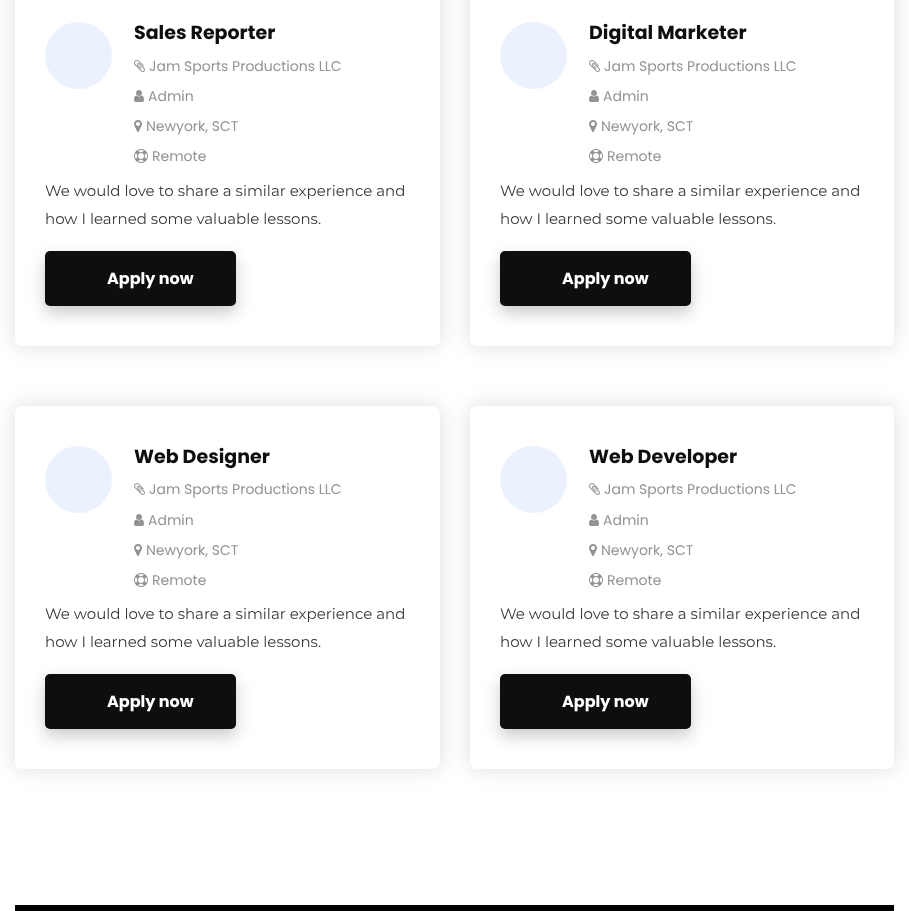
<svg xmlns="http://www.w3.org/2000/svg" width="909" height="911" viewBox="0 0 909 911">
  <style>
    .t1 { font: bold 19px Poppins; fill: #0e0e0e; }
    .t2 { font: 14px Poppins; fill: #939393; }
    .t3 { font: 15px Montserrat; fill: #383838; }
    .t4 { font: bold 16px Poppins; fill: #fff; }
  </style>
  <rect width="100%" height="100%" fill="#fff"/>
  <rect x="15" y="-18" width="425" height="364" rx="7" fill="#0c0c0c24" filter="blur(10px)"/>
  <rect x="15" y="-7" width="425" height="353" rx="7" fill="#fff"/>
  <circle cx="78.5" cy="55.5" r="33.5" fill="#ebf2fd"/>
  <text x="134" y="39" class="t1">Sales Reporter</text>
  <image x="134" y="60" width="11" height="12" href="images/1.png"/>
  <text x="149" y="71" class="t2">Jam Sports Productions LLC</text>
  <image x="134" y="90" width="10" height="12" href="images/2.png"/>
  <text x="148" y="101" class="t2">Admin</text>
  <image x="134" y="120" width="8" height="12" href="images/3.png"/>
  <text x="146" y="131" class="t2">Newyork, SCT</text>
  <image x="134" y="149" width="14" height="14" href="images/4.png"/>
  <text x="152" y="161" class="t2">Remote</text>
  <text x="45" y="196" class="t3">We would love to share a similar experience and</text>
  <text x="45" y="224" class="t3">how I learned some valuable lessons.</text>
  <rect x="45" y="258" width="191" height="55" rx="5" fill="#0c0c0c38" filter="blur(8px)"/>
  <rect x="45" y="251" width="191" height="55" rx="5" fill="#0e0e0e"/>
  <text x="107" y="284" class="t4">Apply now</text>
  <rect x="470" y="-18" width="424" height="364" rx="7" fill="#0c0c0c24" filter="blur(10px)"/>
  <rect x="470" y="-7" width="424" height="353" rx="7" fill="#fff"/>
  <circle cx="533.5" cy="55.5" r="33.5" fill="#ebf2fd"/>
  <text x="589" y="39" class="t1">Digital Marketer</text>
  <image x="589" y="60" width="11" height="12" href="images/1.png"/>
  <text x="604" y="71" class="t2">Jam Sports Productions LLC</text>
  <image x="589" y="90" width="10" height="12" href="images/2.png"/>
  <text x="603" y="101" class="t2">Admin</text>
  <image x="589" y="120" width="8" height="12" href="images/3.png"/>
  <text x="601" y="131" class="t2">Newyork, SCT</text>
  <image x="589" y="149" width="14" height="14" href="images/4.png"/>
  <text x="607" y="161" class="t2">Remote</text>
  <text x="500" y="196" class="t3">We would love to share a similar experience and</text>
  <text x="500" y="224" class="t3">how I learned some valuable lessons.</text>
  <rect x="500" y="258" width="191" height="55" rx="5" fill="#0c0c0c38" filter="blur(8px)"/>
  <rect x="500" y="251" width="191" height="55" rx="5" fill="#0e0e0e"/>
  <text x="562" y="284" class="t4">Apply now</text>
  <rect x="15" y="406" width="425" height="363" rx="7" fill="#0c0c0c24" filter="blur(10px)"/>
  <rect x="15" y="406" width="425" height="363" rx="7" fill="#fff"/>
  <circle cx="78.5" cy="479.5" r="33.5" fill="#ebf2fd"/>
  <text x="134" y="463" class="t1">Web Designer</text>
  <image x="134" y="483" width="11" height="12" href="images/1.png"/>
  <text x="149" y="494" class="t2">Jam Sports Productions LLC</text>
  <image x="134" y="514" width="10" height="12" href="images/2.png"/>
  <text x="148" y="525" class="t2">Admin</text>
  <image x="134" y="544" width="8" height="12" href="images/3.png"/>
  <text x="146" y="555" class="t2">Newyork, SCT</text>
  <image x="134" y="573" width="14" height="14" href="images/4.png"/>
  <text x="152" y="585" class="t2">Remote</text>
  <text x="45" y="619" class="t3">We would love to share a similar experience and</text>
  <text x="45" y="647" class="t3">how I learned some valuable lessons.</text>
  <rect x="45" y="681" width="191" height="55" rx="5" fill="#0c0c0c38" filter="blur(8px)"/>
  <rect x="45" y="674" width="191" height="55" rx="5" fill="#0e0e0e"/>
  <text x="107" y="707" class="t4">Apply now</text>
  <rect x="470" y="406" width="424" height="363" rx="7" fill="#0c0c0c24" filter="blur(10px)"/>
  <rect x="470" y="406" width="424" height="363" rx="7" fill="#fff"/>
  <circle cx="533.5" cy="479.5" r="33.5" fill="#ebf2fd"/>
  <text x="589" y="463" class="t1">Web Developer</text>
  <image x="589" y="483" width="11" height="12" href="images/1.png"/>
  <text x="604" y="494" class="t2">Jam Sports Productions LLC</text>
  <image x="589" y="514" width="10" height="12" href="images/2.png"/>
  <text x="603" y="525" class="t2">Admin</text>
  <image x="589" y="544" width="8" height="12" href="images/3.png"/>
  <text x="601" y="555" class="t2">Newyork, SCT</text>
  <image x="589" y="573" width="14" height="14" href="images/4.png"/>
  <text x="607" y="585" class="t2">Remote</text>
  <text x="500" y="619" class="t3">We would love to share a similar experience and</text>
  <text x="500" y="647" class="t3">how I learned some valuable lessons.</text>
  <rect x="500" y="681" width="191" height="55" rx="5" fill="#0c0c0c38" filter="blur(8px)"/>
  <rect x="500" y="674" width="191" height="55" rx="5" fill="#0e0e0e"/>
  <text x="562" y="707" class="t4">Apply now</text>
  <rect x="15" y="905" width="879" height="6" fill="#000"/>
</svg>
